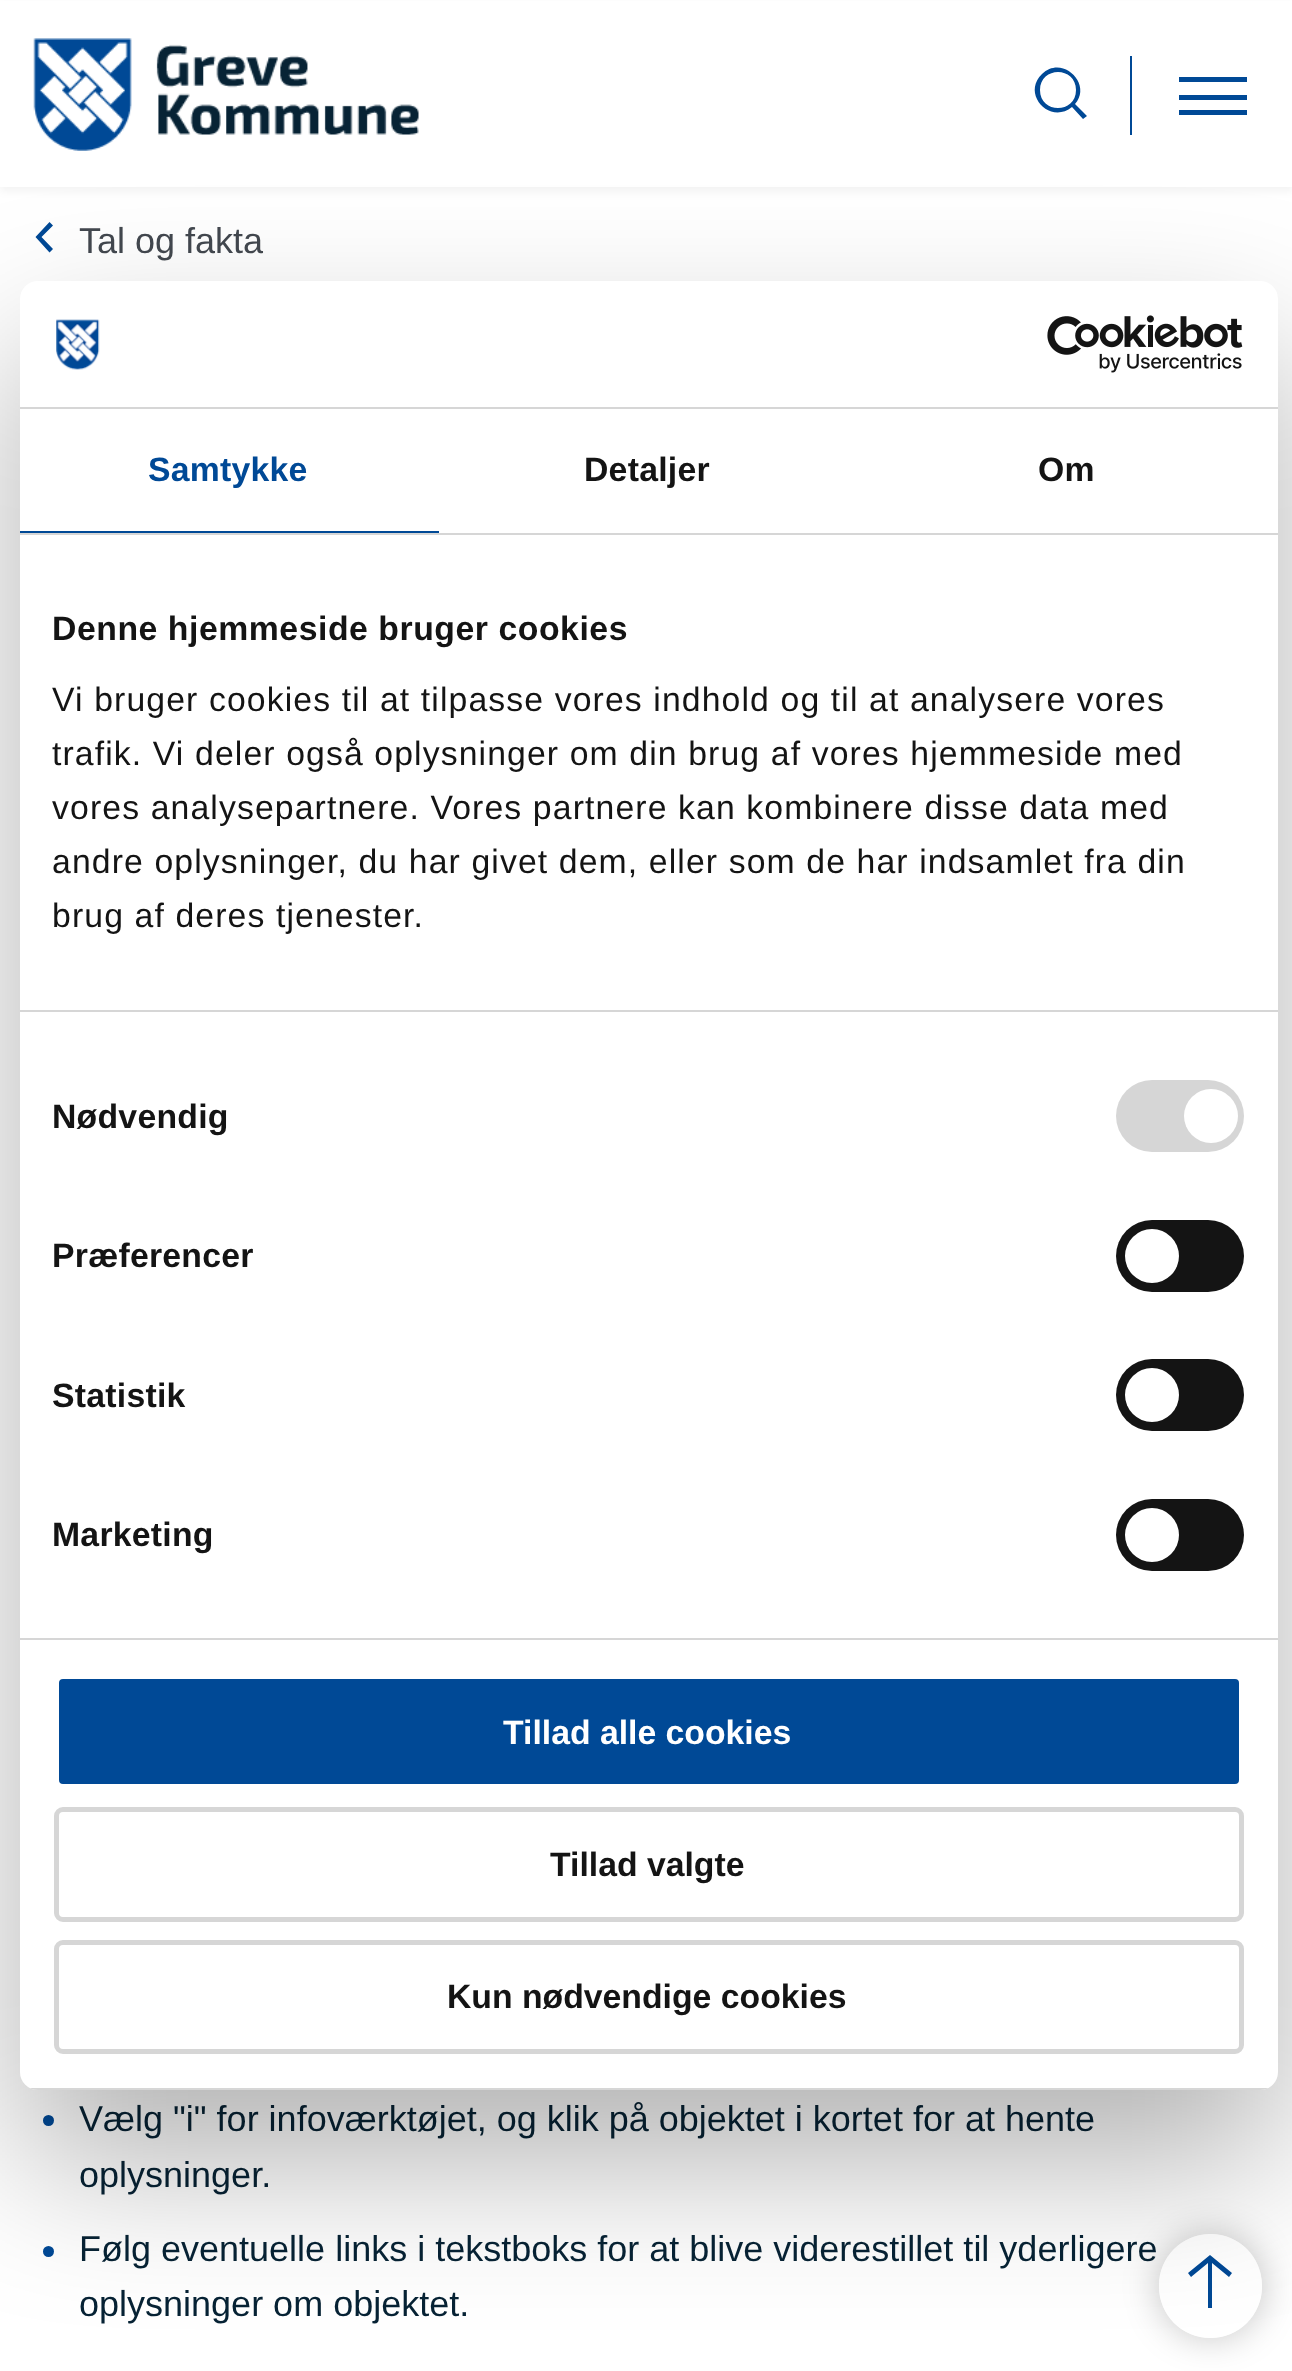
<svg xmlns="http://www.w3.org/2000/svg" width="1292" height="2371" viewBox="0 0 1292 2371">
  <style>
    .t1 { font: 36px Liberation Sans; fill: #43484f; }
    .t2 { font: 36px Liberation Sans; fill: #072335; }
    .t3 { font: bold 33.75px Liberation Sans; letter-spacing: 0.25px; fill: #004996; }
    .t4 { font: bold 33.75px Liberation Sans; letter-spacing: 0.25px; fill: #141414; }
    .t5 { font: bold 33.75px Liberation Sans; letter-spacing: 0.55px; fill: #141414; }
    .t6 { font: 33.75px Liberation Sans; letter-spacing: 1.12px; fill: #141414; }
    .t7 { font: bold 33.75px Liberation Sans; fill: #fff; }
    .t8 { font: bold 33.75px Liberation Sans; fill: #141414; }
  </style>
  <defs>
    <clipPath id="clip1"><path d="M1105 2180H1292V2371H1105ZM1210.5 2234C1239 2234 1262 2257 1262 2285.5V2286.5C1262 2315 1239 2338 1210.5 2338C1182 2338 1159 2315 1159 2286.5V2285.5C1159 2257 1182 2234 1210.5 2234Z" clip-rule="evenodd"/></clipPath>
    <clipPath id="clip2"><rect x="20" y="281" width="1258" height="1809" rx="18"/></clipPath>
  </defs>
  <rect width="100%" height="100%" fill="#fff"/>
  <rect x="0" y="5" width="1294" height="186" fill="#0000000d" filter="blur(4.5px)"/>
  <rect x="0" y="1" width="1292" height="186" fill="#fff"/>
  <image x="33" y="38" width="386" height="113" href="images/1.png"/>
  <path d="M1072 107C1050 125 1021 94 1042 74C1062 54 1093 84 1075 104L1087 116L1083 119ZM1076 90C1076 114 1040 114 1040 90C1040 66 1076 66 1076 90Z" fill="#004996" fill-rule="evenodd"/>
  <rect x="1130" y="56" width="2" height="79" fill="#004996"/>
  <rect x="1179" y="77" width="68" height="5" fill="#004996"/>
  <rect x="1179" y="95" width="68" height="5" fill="#004996"/>
  <rect x="1179" y="110" width="68" height="5" fill="#004996"/>
  <path d="M35.5 237L49.5 222L53 225.5L41.5 237L53 249L49.5 252.5Z" fill="#004996"/>
  <text x="79" y="253" class="t1">Tal og fakta</text>
  <circle cx="48.5" cy="2120.5" r="5.5" fill="#004996"/>
  <text x="79" y="2131" class="t2">Vælg "i" for infoværktøjet, og klik på objektet i kortet for at hente</text>
  <text x="79" y="2187" class="t2">oplysninger.</text>
  <circle cx="48.5" cy="2251.5" r="5.5" fill="#004996"/>
  <text x="79" y="2261" class="t2">Følg eventuelle links i tekstboks for at blive viderestillet til yderligere</text>
  <text x="79" y="2316" class="t2">oplysninger om objektet.</text>
  <g clip-path="url(#clip1)">
    <rect x="1157" y="2232" width="108" height="108" rx="54" fill="#00000033" filter="blur(17px)"/>
  </g>
  <rect x="1159" y="2234" width="103" height="104" rx="51.5" fill="#ffffffbf"/>
  <path d="M1188 2273L1191 2277L1208 2263V2308H1212V2263L1229 2277L1232 2273L1210 2255Z" fill="#004996"/>
  <rect x="20" y="353" width="1258" height="1809" rx="18" fill="#0000004d" filter="blur(76.5px)"/>
  <rect x="20" y="281" width="1258" height="1809" rx="18" fill="#fff"/>
  <rect x="20" y="407" width="1258" height="2" fill="#d6d6d6"/>
  <image x="56" y="319" width="44" height="51" href="images/2.png"/>
  <image x="1047" y="315" width="196" height="58" href="images/3.png"/>
  <rect x="20" y="533" width="1258" height="2" fill="#d6d6d6"/>
  <rect x="20" y="531" width="419" height="2" fill="#004996"/>
  <text x="148" y="481" class="t3">Samtykke</text>
  <text x="584" y="481" class="t4">Detaljer</text>
  <text x="1038" y="481" class="t4">Om</text>
  <rect x="20" y="1010" width="1258" height="2" fill="#d6d6d6"/>
  <text x="52" y="640" class="t5">Denne hjemmeside bruger cookies</text>
  <text x="52" y="711" class="t6">Vi bruger cookies til at tilpasse vores indhold og til at analysere vores</text>
  <text x="52" y="765" class="t6">trafik. Vi deler også oplysninger om din brug af vores hjemmeside med</text>
  <text x="52" y="819" class="t6">vores analysepartnere. Vores partnere kan kombinere disse data med</text>
  <text x="52" y="873" class="t6">andre oplysninger, du har givet dem, eller som de har indsamlet fra din</text>
  <text x="52" y="927" class="t6">brug af deres tjenester.</text>
  <rect x="20" y="1638" width="1258" height="2" fill="#d6d6d6"/>
  <text x="52" y="1128" class="t4">Nødvendig</text>
  <rect x="1116" y="1080" width="128" height="72" rx="36" fill="#d6d6d6"/>
  <circle cx="1211" cy="1116" r="27" fill="#fff"/>
  <text x="52" y="1267" class="t4">Præferencer</text>
  <rect x="1116" y="1220" width="128" height="72" rx="36" fill="#141414"/>
  <circle cx="1152" cy="1256" r="27" fill="#fff"/>
  <text x="52" y="1407" class="t4">Statistik</text>
  <rect x="1116" y="1359" width="128" height="72" rx="36" fill="#141414"/>
  <circle cx="1152" cy="1395" r="27" fill="#fff"/>
  <text x="52" y="1546" class="t4">Marketing</text>
  <rect x="1116" y="1499" width="128" height="72" rx="36" fill="#141414"/>
  <circle cx="1152" cy="1535" r="27" fill="#fff"/>
  <g clip-path="url(#clip2)">
    <rect x="30" y="2088" width="1238" height="2" fill="#d6d6d6"/>
  </g>
  <rect x="56.5" y="1676.5" width="1185" height="110" rx="6.5" fill="#004996" stroke="#fff" stroke-width="5"/>
  <text x="503" y="1744" class="t7">Tillad alle cookies</text>
  <rect x="56.5" y="1809.5" width="1185" height="110" rx="6.5" fill="none" stroke="#d6d6d6" stroke-width="5"/>
  <text x="550" y="1876" class="t8">Tillad valgte</text>
  <rect x="56.5" y="1942.5" width="1185" height="109" rx="6.5" fill="none" stroke="#d6d6d6" stroke-width="5"/>
  <text x="447" y="2008" class="t8">Kun nødvendige cookies</text>
</svg>
